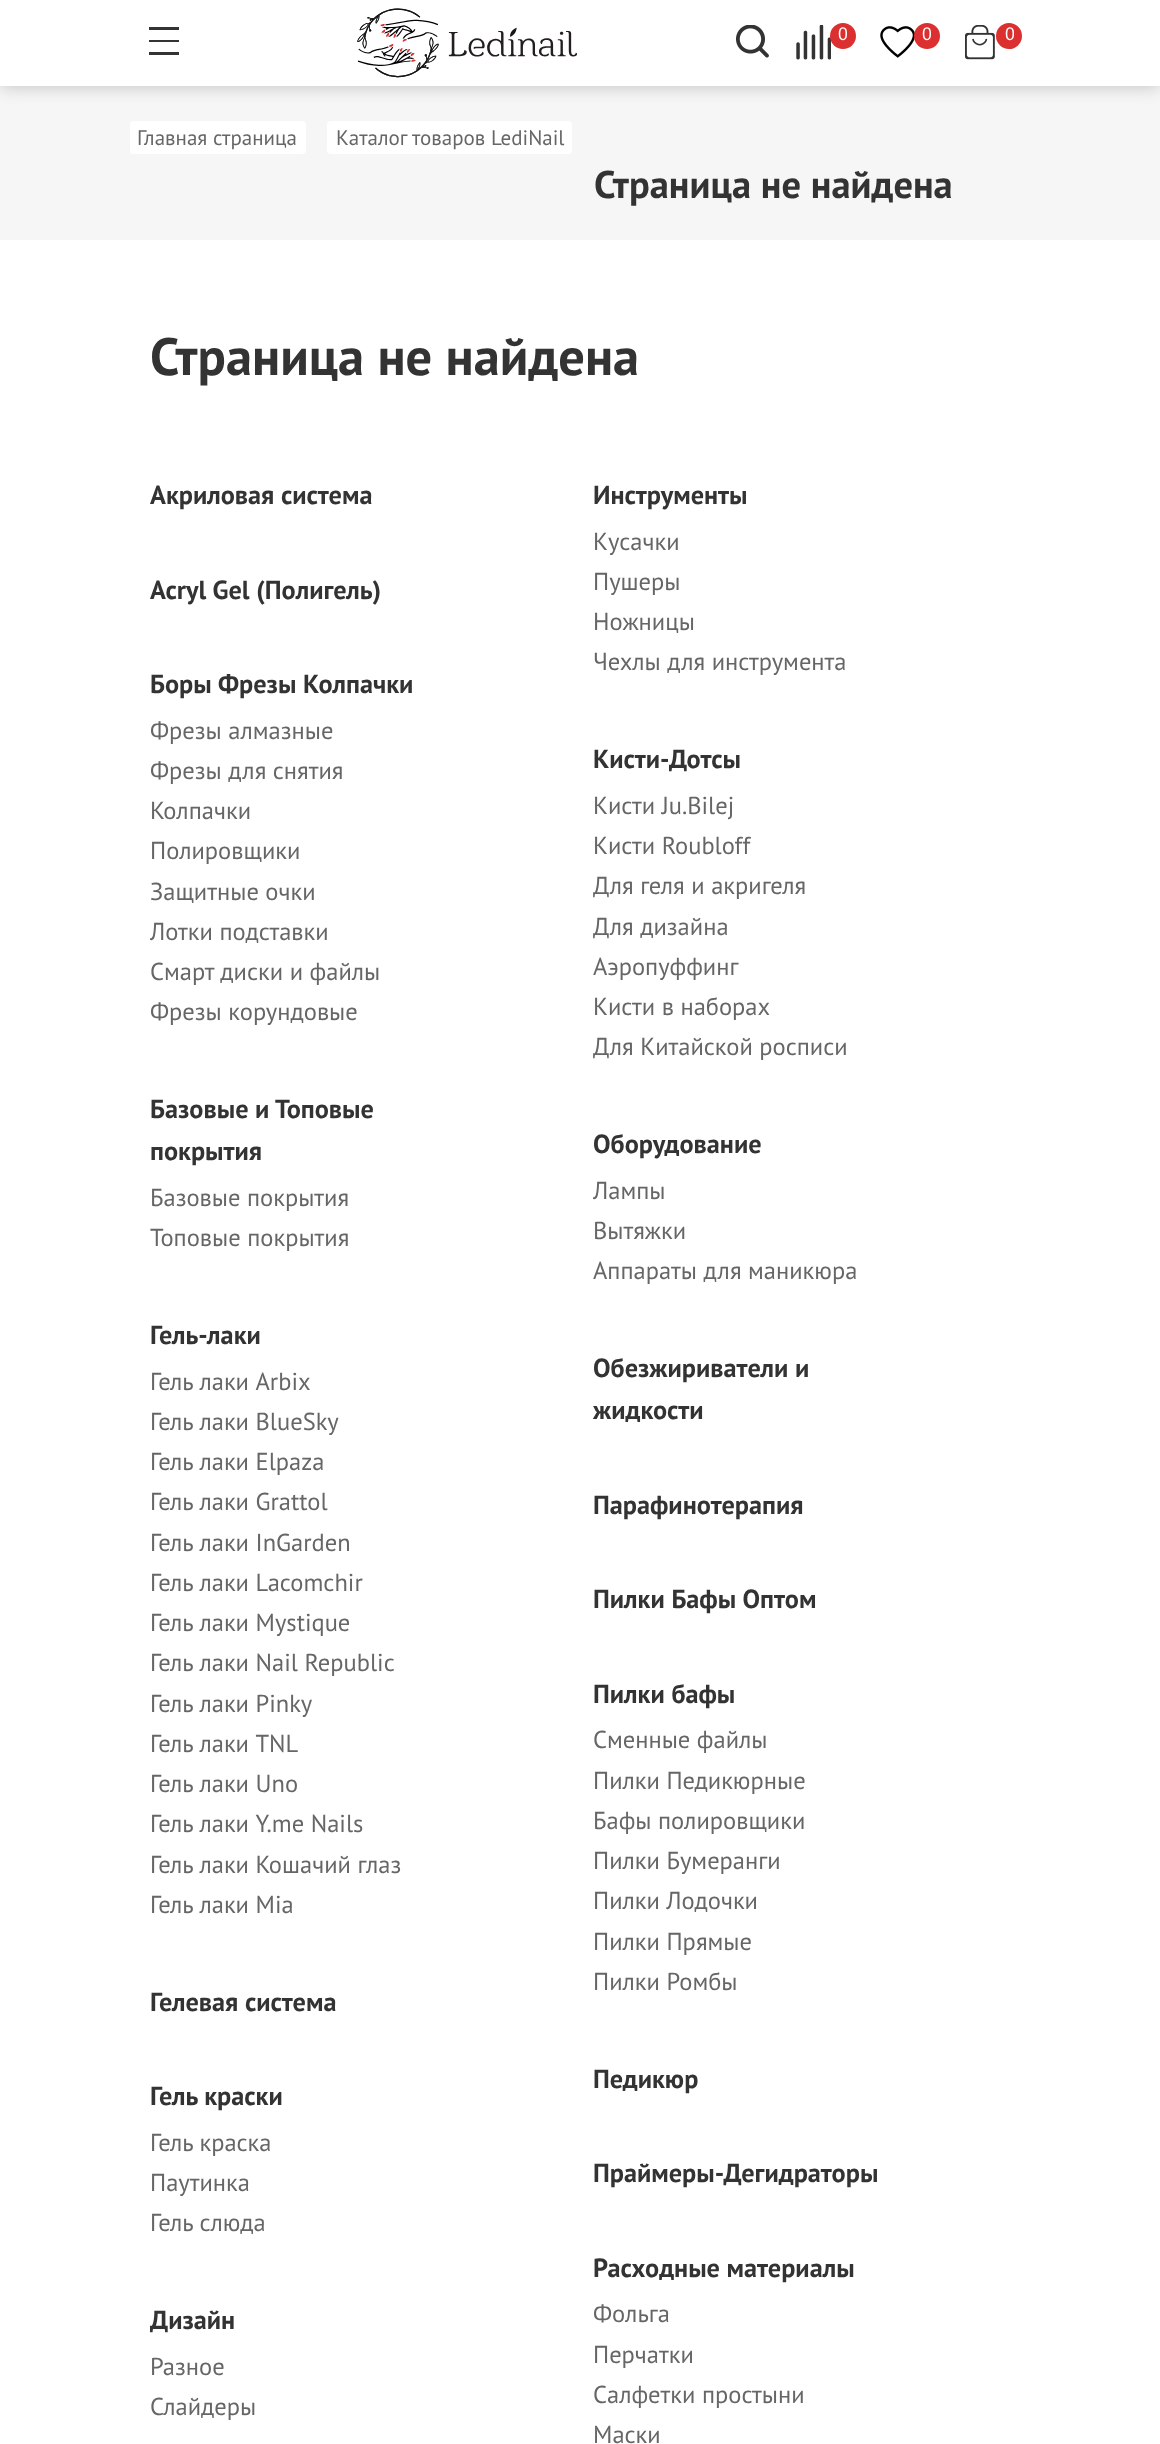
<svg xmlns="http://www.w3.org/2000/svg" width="1160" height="2444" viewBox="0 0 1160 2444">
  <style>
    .t1 { font: 18px PT Sans; fill: #fff; }
    .t2 { font: 21px PT Sans; fill: #666; }
    .t3 { font: bold 38.5px PT Sans; fill: #333; }
    .t4 { font: bold 52.5px PT Sans; fill: #333; }
    .t5 { font: bold 26.25px PT Sans; fill: #333; }
    .t6 { font: 24.5px PT Sans; fill: #666; }
  </style>
  <rect width="100%" height="100%" fill="#f6f6f6"/>
  <rect x="0" y="0" width="1160" height="86" fill="#00000038" filter="blur(9px)"/>
  <rect x="0" y="0" width="1160" height="86" fill="#fff"/>
  <rect x="149" y="27" width="30" height="3" fill="#333"/>
  <rect x="149" y="40" width="30" height="2" fill="#333"/>
  <rect x="149" y="52" width="30" height="3" fill="#333"/>
  <image x="357" y="8" width="220" height="70" href="images/1.png"/>
  <image x="736" y="25" width="33" height="33" href="images/2.png"/>
  <image x="796" y="25" width="35" height="35" href="images/3.png"/>
  <circle cx="843" cy="36" r="13" fill="#dc2f2f"/>
  <text x="838" y="40" class="t1">0</text>
  <image x="880" y="26" width="35" height="32" href="images/4.png"/>
  <circle cx="927" cy="36" r="13" fill="#dc2f2f"/>
  <text x="922" y="40" class="t1">0</text>
  <image x="965" y="25" width="30" height="35" href="images/5.png"/>
  <circle cx="1009" cy="36" r="13" fill="#dc2f2f"/>
  <text x="1005" y="40" class="t1">0</text>
  <rect x="130" y="121" width="176" height="33" rx="4" fill="#fff"/>
  <text x="137" y="145" class="t2">Главная страница</text>
  <rect x="327" y="121" width="245" height="33" rx="4" fill="#fff"/>
  <text x="336" y="145" class="t2">Каталог товаров LediNail</text>
  <text x="594" y="198" class="t3">Страница не найдена</text>
  <rect x="0" y="240" width="1160" height="2204" fill="#fff"/>
  <text x="150" y="375" class="t4">Страница не найдена</text>
  <text x="150" y="504" class="t5">Акриловая система</text>
  <text x="593" y="504" class="t5">Инструменты</text>
  <text x="593" y="550" class="t6">Кусачки</text>
  <text x="593" y="590" class="t6">Пушеры</text>
  <text x="593" y="630" class="t6">Ножницы</text>
  <text x="593" y="670" class="t6">Чехлы для инструмента</text>
  <text x="150" y="599" class="t5">Acryl Gel (Полигель)</text>
  <text x="150" y="693" class="t5">Боры Фрезы Колпачки</text>
  <text x="150" y="739" class="t6">Фрезы алмазные</text>
  <text x="150" y="779" class="t6">Фрезы для снятия</text>
  <text x="150" y="819" class="t6">Колпачки</text>
  <text x="150" y="859" class="t6">Полировщики</text>
  <text x="150" y="900" class="t6">Защитные очки</text>
  <text x="150" y="940" class="t6">Лотки подставки</text>
  <text x="150" y="980" class="t6">Смарт диски и файлы</text>
  <text x="150" y="1020" class="t6">Фрезы корундовые</text>
  <text x="593" y="768" class="t5">Кисти-Дотсы</text>
  <text x="593" y="814" class="t6">Кисти Ju.Bilej</text>
  <text x="593" y="854" class="t6">Кисти Roubloff</text>
  <text x="593" y="894" class="t6">Для геля и акригеля</text>
  <text x="593" y="935" class="t6">Для дизайна</text>
  <text x="593" y="975" class="t6">Аэропуффинг</text>
  <text x="593" y="1015" class="t6">Кисти в наборах</text>
  <text x="593" y="1055" class="t6">Для Китайской росписи</text>
  <text x="150" y="1118" class="t5">Базовые и Топовые</text>
  <text x="150" y="1160" class="t5">покрытия</text>
  <text x="150" y="1206" class="t6">Базовые покрытия</text>
  <text x="150" y="1246" class="t6">Топовые покрытия</text>
  <text x="593" y="1153" class="t5">Оборудование</text>
  <text x="593" y="1199" class="t6">Лампы</text>
  <text x="593" y="1239" class="t6">Вытяжки</text>
  <text x="593" y="1279" class="t6">Аппараты для маникюра</text>
  <text x="150" y="1344" class="t5">Гель-лаки</text>
  <text x="150" y="1390" class="t6">Гель лаки Arbix</text>
  <text x="150" y="1430" class="t6">Гель лаки BlueSky</text>
  <text x="150" y="1470" class="t6">Гель лаки Elpaza</text>
  <text x="150" y="1510" class="t6">Гель лаки Grattol</text>
  <text x="150" y="1551" class="t6">Гель лаки InGarden</text>
  <text x="150" y="1591" class="t6">Гель лаки Lacomchir</text>
  <text x="150" y="1631" class="t6">Гель лаки Mystique</text>
  <text x="150" y="1671" class="t6">Гель лаки Nail Republic</text>
  <text x="150" y="1712" class="t6">Гель лаки Pinky</text>
  <text x="150" y="1752" class="t6">Гель лаки TNL</text>
  <text x="150" y="1792" class="t6">Гель лаки Uno</text>
  <text x="150" y="1832" class="t6">Гель лаки Y.me Nails</text>
  <text x="150" y="1873" class="t6">Гель лаки Кошачий глаз</text>
  <text x="150" y="1913" class="t6">Гель лаки Mia</text>
  <text x="593" y="1377" class="t5">Обезжириватели и</text>
  <text x="593" y="1419" class="t5">жидкости</text>
  <text x="593" y="1514" class="t5">Парафинотерапия</text>
  <text x="593" y="1608" class="t5">Пилки Бафы Оптом</text>
  <text x="593" y="1703" class="t5">Пилки бафы</text>
  <text x="593" y="1748" class="t6">Сменные файлы</text>
  <text x="593" y="1789" class="t6">Пилки Педикюрные</text>
  <text x="593" y="1829" class="t6">Бафы полировщики</text>
  <text x="593" y="1869" class="t6">Пилки Бумеранги</text>
  <text x="593" y="1909" class="t6">Пилки Лодочки</text>
  <text x="593" y="1950" class="t6">Пилки Прямые</text>
  <text x="593" y="1990" class="t6">Пилки Ромбы</text>
  <text x="150" y="2011" class="t5">Гелевая система</text>
  <text x="593" y="2088" class="t5">Педикюр</text>
  <text x="150" y="2105" class="t5">Гель краски</text>
  <text x="150" y="2151" class="t6">Гель краска</text>
  <text x="150" y="2191" class="t6">Паутинка</text>
  <text x="150" y="2231" class="t6">Гель слюда</text>
  <text x="593" y="2182" class="t5">Праймеры-Дегидраторы</text>
  <text x="150" y="2329" class="t5">Дизайн</text>
  <text x="150" y="2375" class="t6">Разное</text>
  <text x="150" y="2415" class="t6">Слайдеры</text>
  <text x="593" y="2277" class="t5">Расходные материалы</text>
  <text x="593" y="2322" class="t6">Фольга</text>
  <text x="593" y="2363" class="t6">Перчатки</text>
  <text x="593" y="2403" class="t6">Салфетки простыни</text>
  <text x="593" y="2443" class="t6">Маски</text>
</svg>
